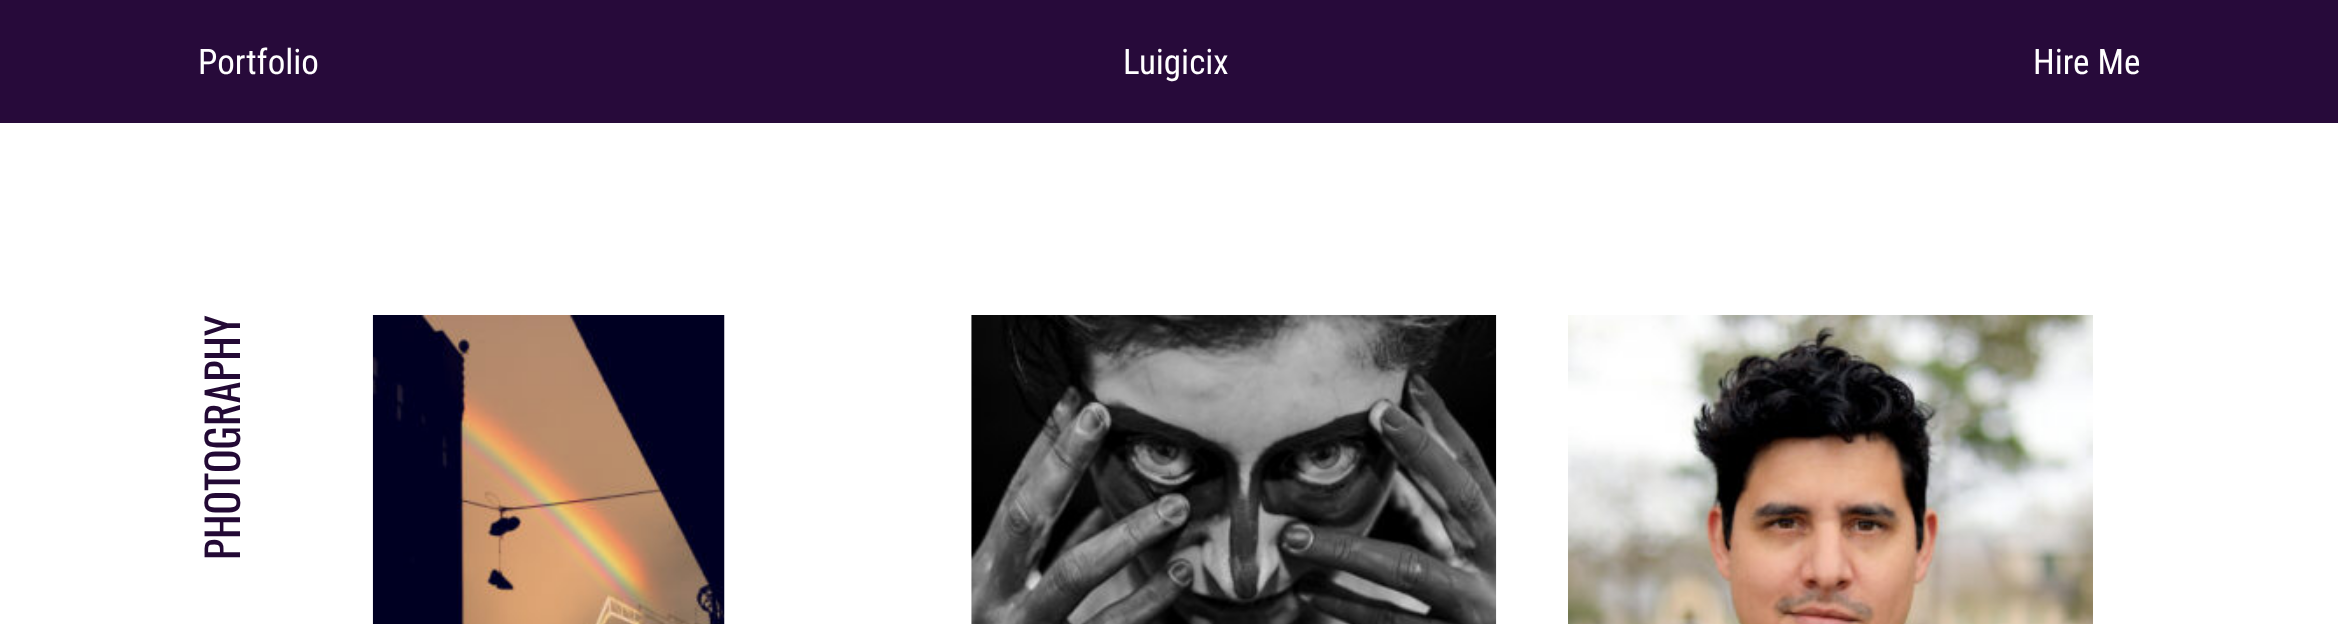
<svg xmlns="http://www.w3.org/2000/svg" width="2338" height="624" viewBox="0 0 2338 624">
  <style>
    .t1 { font: 35px Roboto Condensed; fill: #fff; }
    .t2 { font: 43.75px Oswald; fill: #230935; }
  </style>
  <rect width="100%" height="100%" fill="#fff"/>
  <rect x="0" y="0" width="2338" height="123" fill="#270a3a"/>
  <text x="198" y="74" class="t1">Portfolio</text>
  <text x="1123" y="74" class="t1">Luigicix</text>
  <text x="2033" y="74" class="t1">Hire Me</text>
  <text x="240" y="560" transform="rotate(-90 240 560)" class="t2">PHOTOGRAPHY</text>
  <image x="372" y="315" width="353" height="309" href="images/1.png"/>
  <image x="971" y="315" width="526" height="309" href="images/2.png"/>
  <image x="1568" y="315" width="525" height="309" href="images/3.png"/>
</svg>
